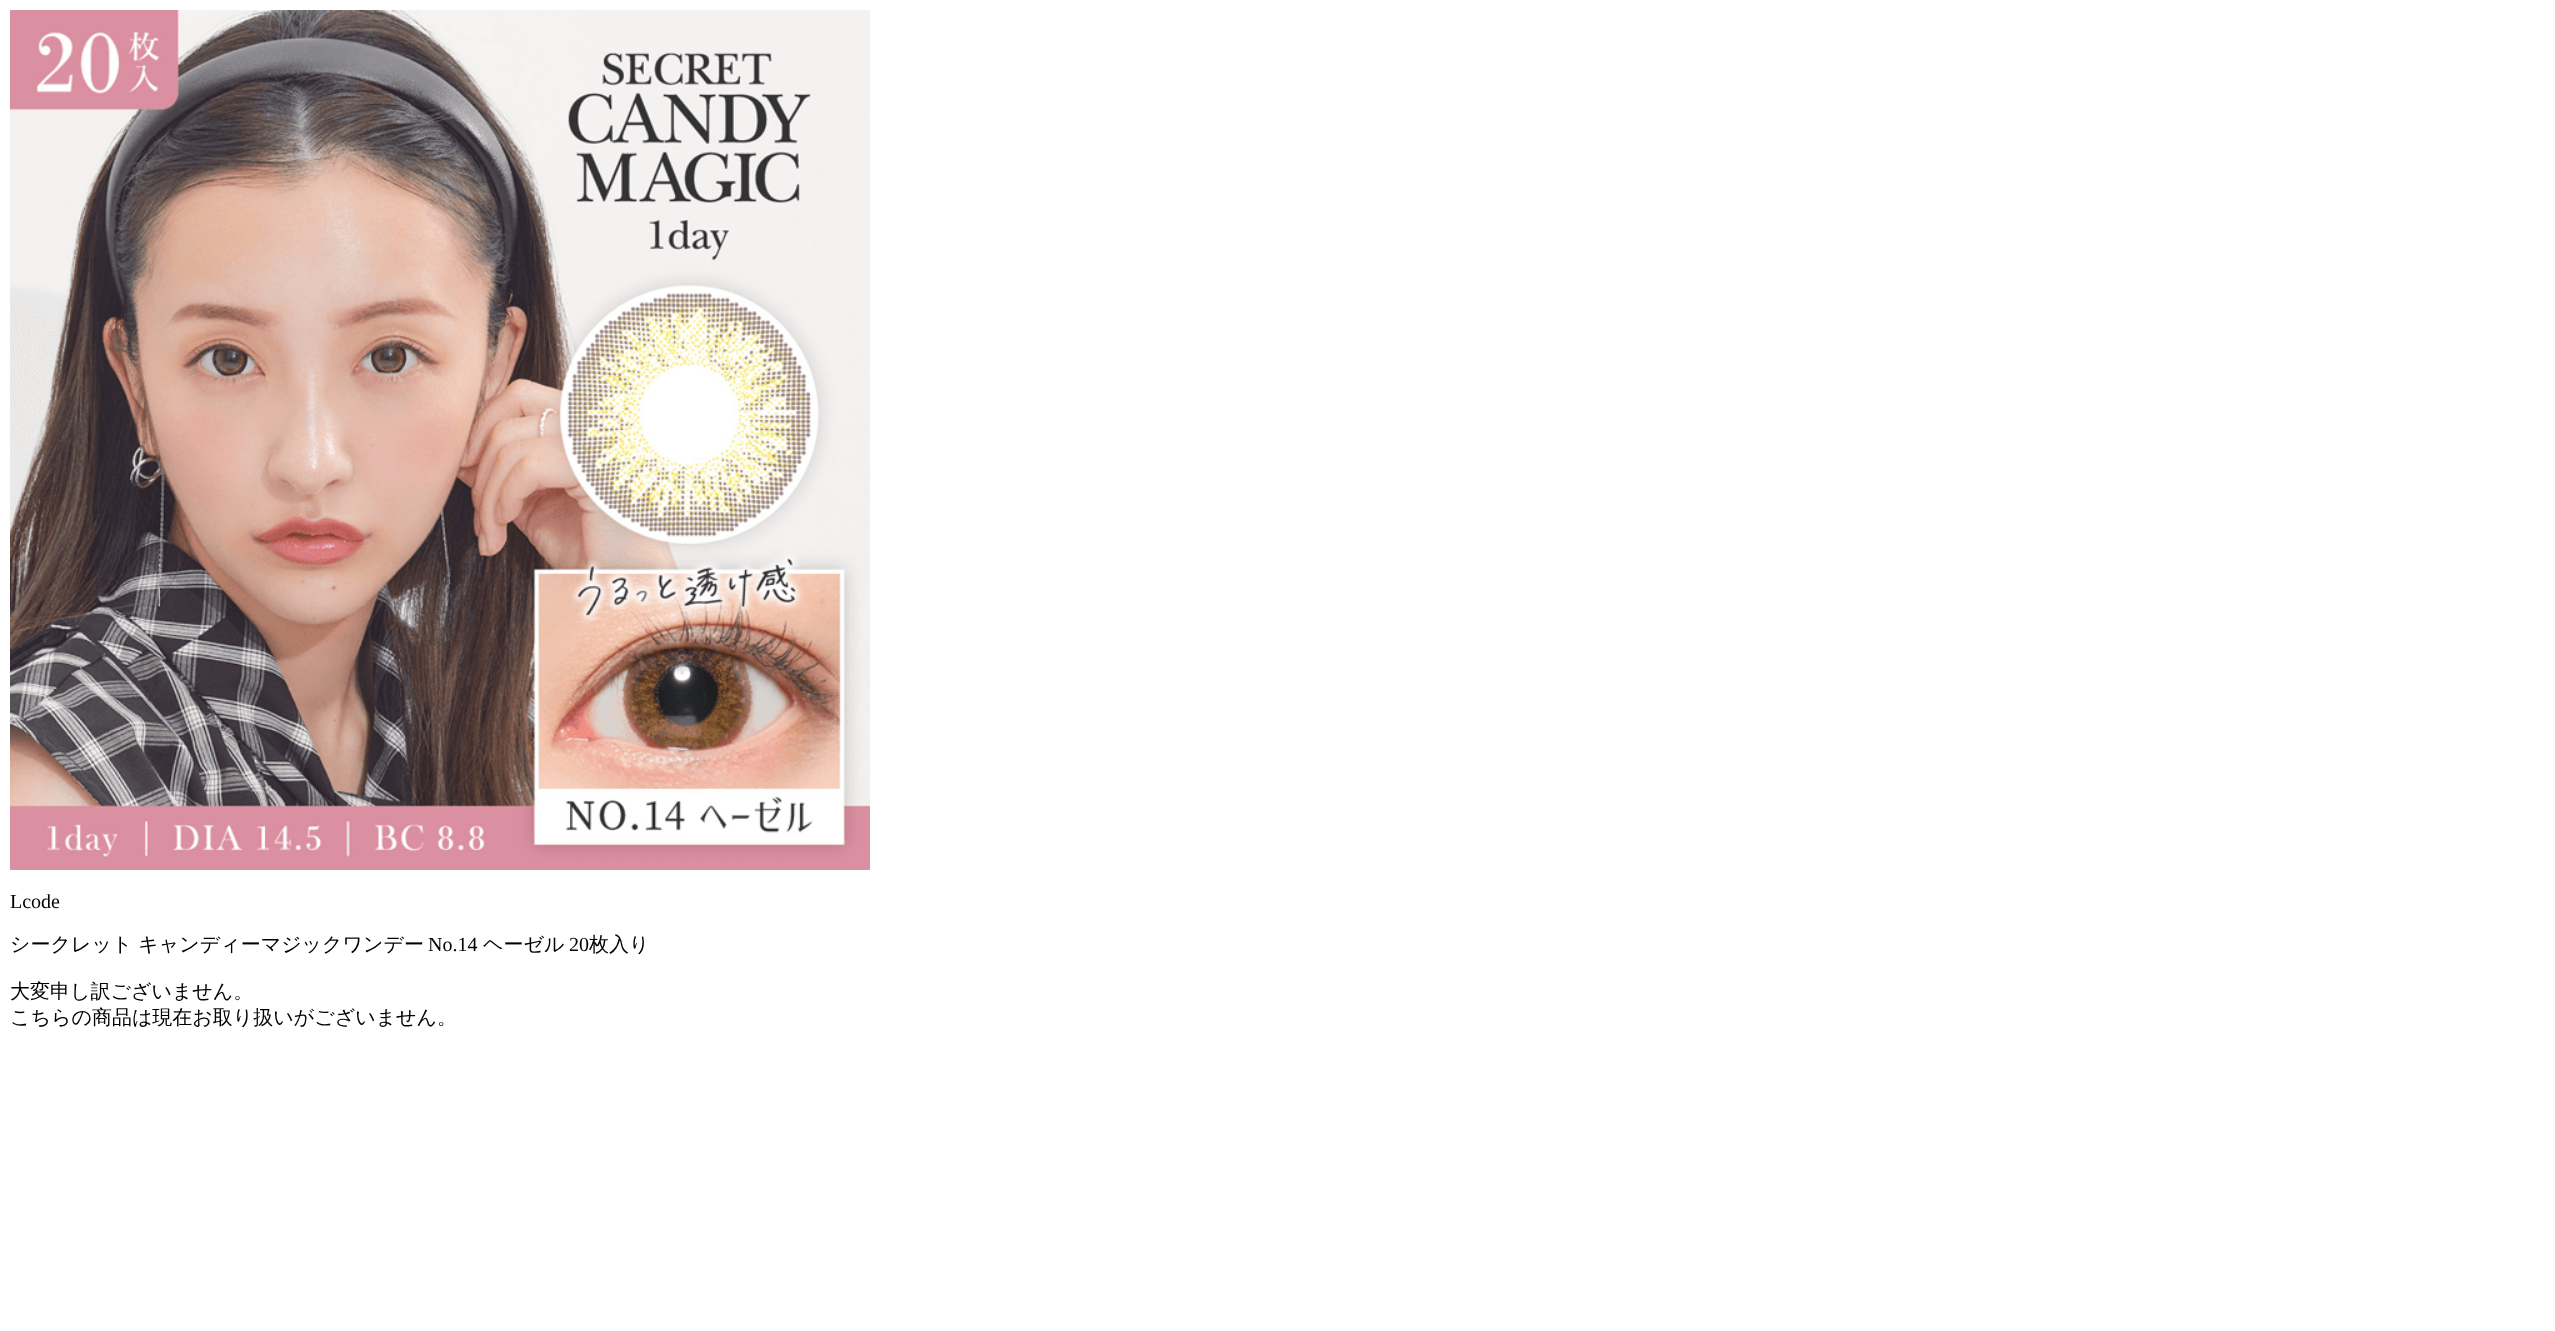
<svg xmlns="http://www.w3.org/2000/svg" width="2555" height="1331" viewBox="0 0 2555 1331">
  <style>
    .t1 { font: 20px Liberation Serif; fill: #000; }
    .t2 { font: 500 20px WenQuanYi Zen Hei; fill: #000; }
  </style>
  <rect width="100%" height="100%" fill="#fff"/>
  <image x="10" y="10" width="860" height="860" href="images/1.png"/>
  <text x="10" y="908" class="t1">Lcode</text>
  <text x="10" y="951" class="t2">シークレット キャンディーマジックワンデー</text>
  <text x="428" y="951" class="t1">No.14</text>
  <text x="483" y="951" class="t2">ヘーゼル</text>
  <text x="569" y="951" class="t1">20</text>
  <text x="589" y="951" class="t2">枚入り</text>
  <text x="10" y="998" class="t2">大変申し訳ございません。</text>
  <text x="10" y="1024" class="t2">こちらの商品は現在お取り扱いがございません。</text>
</svg>
